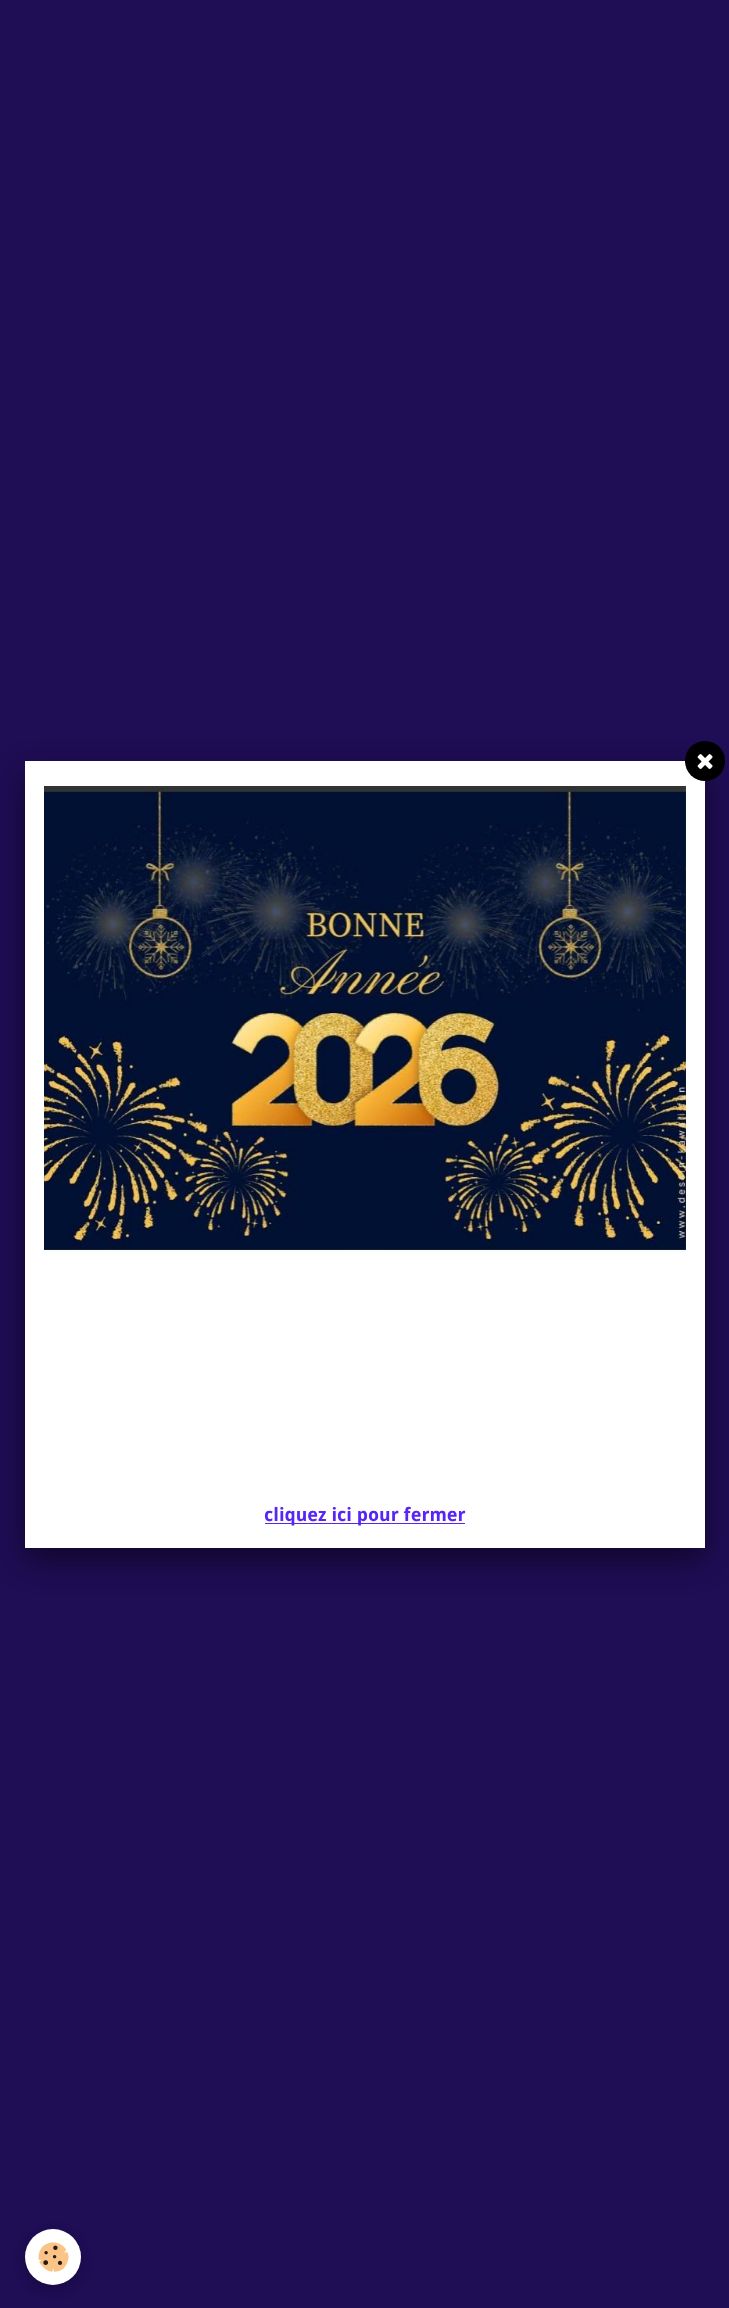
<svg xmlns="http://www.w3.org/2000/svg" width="729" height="2308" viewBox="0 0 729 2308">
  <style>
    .t1 { font: bold 18.5px Droid Sans; fill: #5826f4; }
  </style>
  <rect width="100%" height="100%" fill="#1f0d55"/>
  <rect x="25" y="774" width="680" height="786" fill="#00000080" filter="blur(15.5px)"/>
  <rect x="25" y="761" width="680" height="787" fill="#fff"/>
  <circle cx="705" cy="761" r="20" fill="#000"/>
  <image x="697" y="754" width="16" height="15" href="images/1.png"/>
  <image x="44" y="786" width="642" height="467" href="images/2.png"/>
  <rect x="265" y="1523" width="200" height="1" fill="#5826f4"/>
  <text x="264" y="1521" class="t1">cliquez ici pour fermer</text>
  <rect x="25" y="2233" width="56" height="56" rx="28" fill="#0000003d" filter="blur(6px)"/>
  <circle cx="53" cy="2257" r="28" fill="#fff"/>
  <image x="38" y="2242" width="31" height="30" href="images/3.png"/>
</svg>
